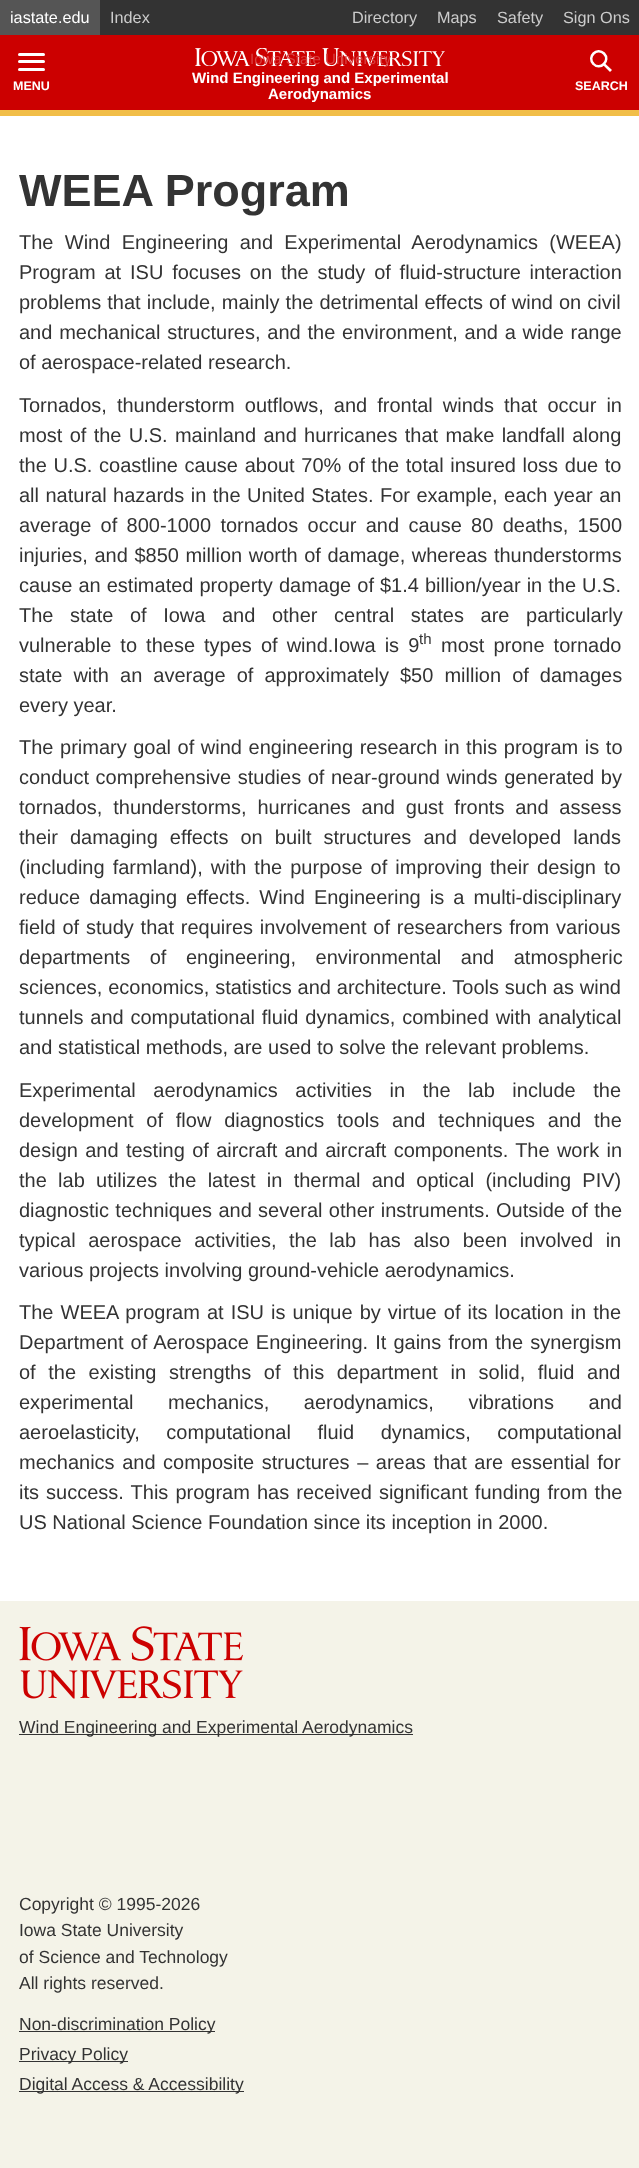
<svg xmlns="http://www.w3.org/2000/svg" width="639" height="2168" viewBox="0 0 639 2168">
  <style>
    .t1 { font: 16.25px Liberation Sans; fill: #fff; }
    .t2 { font: 16.25px Liberation Sans; fill: #ccc; }
    .t3 { font: 15px Liberation Sans; fill: #d93f3f; }
    .t4 { font: bold 15px Liberation Sans; fill: #fff; }
    .t5 { font: bold 12.5px Liberation Sans; fill: #fff; }
    .t6 { font: bold 45px Liberation Sans; fill: #333; }
    .t7 { font: 20px Liberation Sans; fill: #333; }
    .t8 { font: 15px Liberation Sans; fill: #333; }
    .t9 { font: 17.5px Liberation Sans; fill: #333; }
  </style>
  <rect width="100%" height="100%" fill="#f4f3e8"/>
  <rect x="100" y="0" width="539" height="35" fill="#333"/>
  <rect x="0" y="0" width="100" height="35" fill="#555"/>
  <text x="10" y="23" class="t1">iastate.edu</text>
  <text x="110" y="23" class="t2">Index</text>
  <text x="352" y="23" class="t2">Directory</text>
  <text x="437" y="23" class="t2">Maps</text>
  <text x="497" y="23" class="t2">Safety</text>
  <text x="563" y="23" class="t2">Sign Ons</text>
  <rect x="0" y="35" width="639" height="75" fill="#c00"/>
  <rect x="0" y="110" width="639" height="6" fill="#f1be48"/>
  <image x="195" y="48" width="250" height="18" href="images/1.png"/>
  <text x="250" y="64" class="t3">Iowa State University</text>
  <text x="192" y="83" class="t4">Wind Engineering and Experimental</text>
  <text x="268" y="99" class="t4">Aerodynamics</text>
  <rect x="18" y="53" width="27" height="3" rx="1.5" fill="#fff"/>
  <rect x="18" y="60" width="27" height="3" rx="1.5" fill="#fff"/>
  <rect x="18" y="68" width="27" height="3" rx="1.5" fill="#fff"/>
  <text x="13" y="90" class="t5">MENU</text>
  <path d="M604 53.5C611 60.5 600 71 593.5 64C586.5 57 597 46.5 604 53.5Z" fill="none" stroke="#fff" stroke-width="2.5"/>
  <path d="M603 65L604.5 63L612 70L610 72Z" fill="#fff"/>
  <text x="575" y="90" class="t5">SEARCH</text>
  <rect x="0" y="116" width="639" height="1485" fill="#fff"/>
  <text x="19" y="206" class="t6">WEEA Program</text>
  <text x="19" y="249" word-spacing="5.75" class="t7">The Wind Engineering and Experimental Aerodynamics (WEEA)</text>
  <text x="19" y="279" word-spacing="3.25" class="t7">Program at ISU focuses on the study of fluid-structure interaction</text>
  <text x="19" y="309" word-spacing="0.5" class="t7">problems that include, mainly the detrimental effects of wind on civil</text>
  <text x="19" y="339" word-spacing="1.25" class="t7">and mechanical structures, and the environment, and a wide range</text>
  <text x="19" y="369" class="t7">of aerospace-related research.</text>
  <text x="19" y="412" word-spacing="4.5" class="t7">Tornados, thunderstorm outflows, and frontal winds that occur in</text>
  <text x="19" y="442" word-spacing="1.75" class="t7">most of the U.S. mainland and hurricanes that make landfall along</text>
  <text x="19" y="472" word-spacing="1.1" class="t7">the U.S. coastline cause about 70% of the total insured loss due to</text>
  <text x="19" y="502" word-spacing="0.9" class="t7">all natural hazards in the United States. For example, each year an</text>
  <text x="19" y="532" word-spacing="3.75" class="t7">average of 800-1000 tornados occur and cause 80 deaths, 1500</text>
  <text x="19" y="562" word-spacing="1" class="t7">injuries, and $850 million worth of damage, whereas thunderstorms</text>
  <text x="19" y="592" word-spacing="0.5" class="t7">cause an estimated property damage of $1.4 billion/year in the U.S.</text>
  <text x="19" y="622" word-spacing="11" class="t7">The state of Iowa and other central states are particularly</text>
  <text x="19" y="652" word-spacing="3.5" class="t7">vulnerable to these types of wind.Iowa is 9</text>
  <text x="419" y="644" class="t8">th</text>
  <text x="441" y="652" word-spacing="3.5" class="t7">most prone tornado</text>
  <text x="19" y="682" word-spacing="5.5" class="t7">state with an average of approximately $50 million of damages</text>
  <text x="19" y="712" class="t7">every year.</text>
  <text x="19" y="754" word-spacing="1" class="t7">The primary goal of wind engineering research in this program is to</text>
  <text x="19" y="784" word-spacing="1" class="t7">conduct comprehensive studies of near-ground winds generated by</text>
  <text x="19" y="814" word-spacing="5.25" class="t7">tornados, thunderstorms, hurricanes and gust fronts and assess</text>
  <text x="19" y="844" word-spacing="6.5" class="t7">their damaging effects on built structures and developed lands</text>
  <text x="19" y="874" word-spacing="2.5" class="t7">(including farmland), with the purpose of improving their design to</text>
  <text x="19" y="904" word-spacing="3.5" class="t7">reduce damaging effects. Wind Engineering is a multi-disciplinary</text>
  <text x="19" y="934" word-spacing="1.25" class="t7">field of study that requires involvement of researchers from various</text>
  <text x="19" y="964" word-spacing="14" class="t7">departments of engineering, environmental and atmospheric</text>
  <text x="19" y="994" word-spacing="0.25" class="t7">sciences, economics, statistics and architecture. Tools such as wind</text>
  <text x="19" y="1024" word-spacing="1.25" class="t7">tunnels and computational fluid dynamics, combined with analytical</text>
  <text x="19" y="1054" class="t7">and statistical methods, are used to solve the relevant problems.</text>
  <text x="19" y="1097" word-spacing="12" class="t7">Experimental aerodynamics activities in the lab include the</text>
  <text x="19" y="1127" word-spacing="7.25" class="t7">development of flow diagnostics tools and techniques and the</text>
  <text x="19" y="1157" word-spacing="1.75" class="t7">design and testing of aircraft and aircraft components. The work in</text>
  <text x="19" y="1187" word-spacing="5.75" class="t7">the lab utilizes the latest in thermal and optical (including PIV)</text>
  <text x="19" y="1217" word-spacing="0.75" class="t7">diagnostic techniques and several other instruments. Outside of the</text>
  <text x="19" y="1247" word-spacing="7" class="t7">typical aerospace activities, the lab has also been involved in</text>
  <text x="19" y="1277" class="t7">various projects involving ground-vehicle aerodynamics.</text>
  <text x="19" y="1319" word-spacing="1.5" class="t7">The WEEA program at ISU is unique by virtue of its location in the</text>
  <text x="19" y="1349" word-spacing="1.5" class="t7">Department of Aerospace Engineering. It gains from the synergism</text>
  <text x="19" y="1379" word-spacing="7" class="t7">of the existing strengths of this department in solid, fluid and</text>
  <text x="19" y="1409" word-spacing="29" class="t7">experimental mechanics, aerodynamics, vibrations and</text>
  <text x="19" y="1439" word-spacing="21" class="t7">aeroelasticity, computational fluid dynamics, computational</text>
  <text x="19" y="1469" word-spacing="2" class="t7">mechanics and composite structures – areas that are essential for</text>
  <text x="19" y="1499" word-spacing="1.5" class="t7">its success. This program has received significant funding from the</text>
  <text x="19" y="1529" class="t7">US National Science Foundation since its inception in 2000.</text>
  <image x="19" y="1626" width="224" height="73" href="images/2.png"/>
  <rect x="19" y="1734" width="394" height="1" fill="#333"/>
  <text x="19" y="1733" class="t9">Wind Engineering and Experimental Aerodynamics</text>
  <text x="19" y="1910" class="t9">Copyright © 1995-2026</text>
  <text x="19" y="1936" class="t9">Iowa State University</text>
  <text x="19" y="1963" class="t9">of Science and Technology</text>
  <text x="19" y="1989" class="t9">All rights reserved.</text>
  <rect x="19" y="2031" width="196" height="1" fill="#333"/>
  <text x="19" y="2030" class="t9">Non-discrimination Policy</text>
  <rect x="19" y="2061" width="109" height="1" fill="#333"/>
  <text x="19" y="2060" class="t9">Privacy Policy</text>
  <rect x="19" y="2091" width="225" height="1" fill="#333"/>
  <text x="19" y="2090" class="t9">Digital Access &amp; Accessibility</text>
</svg>
